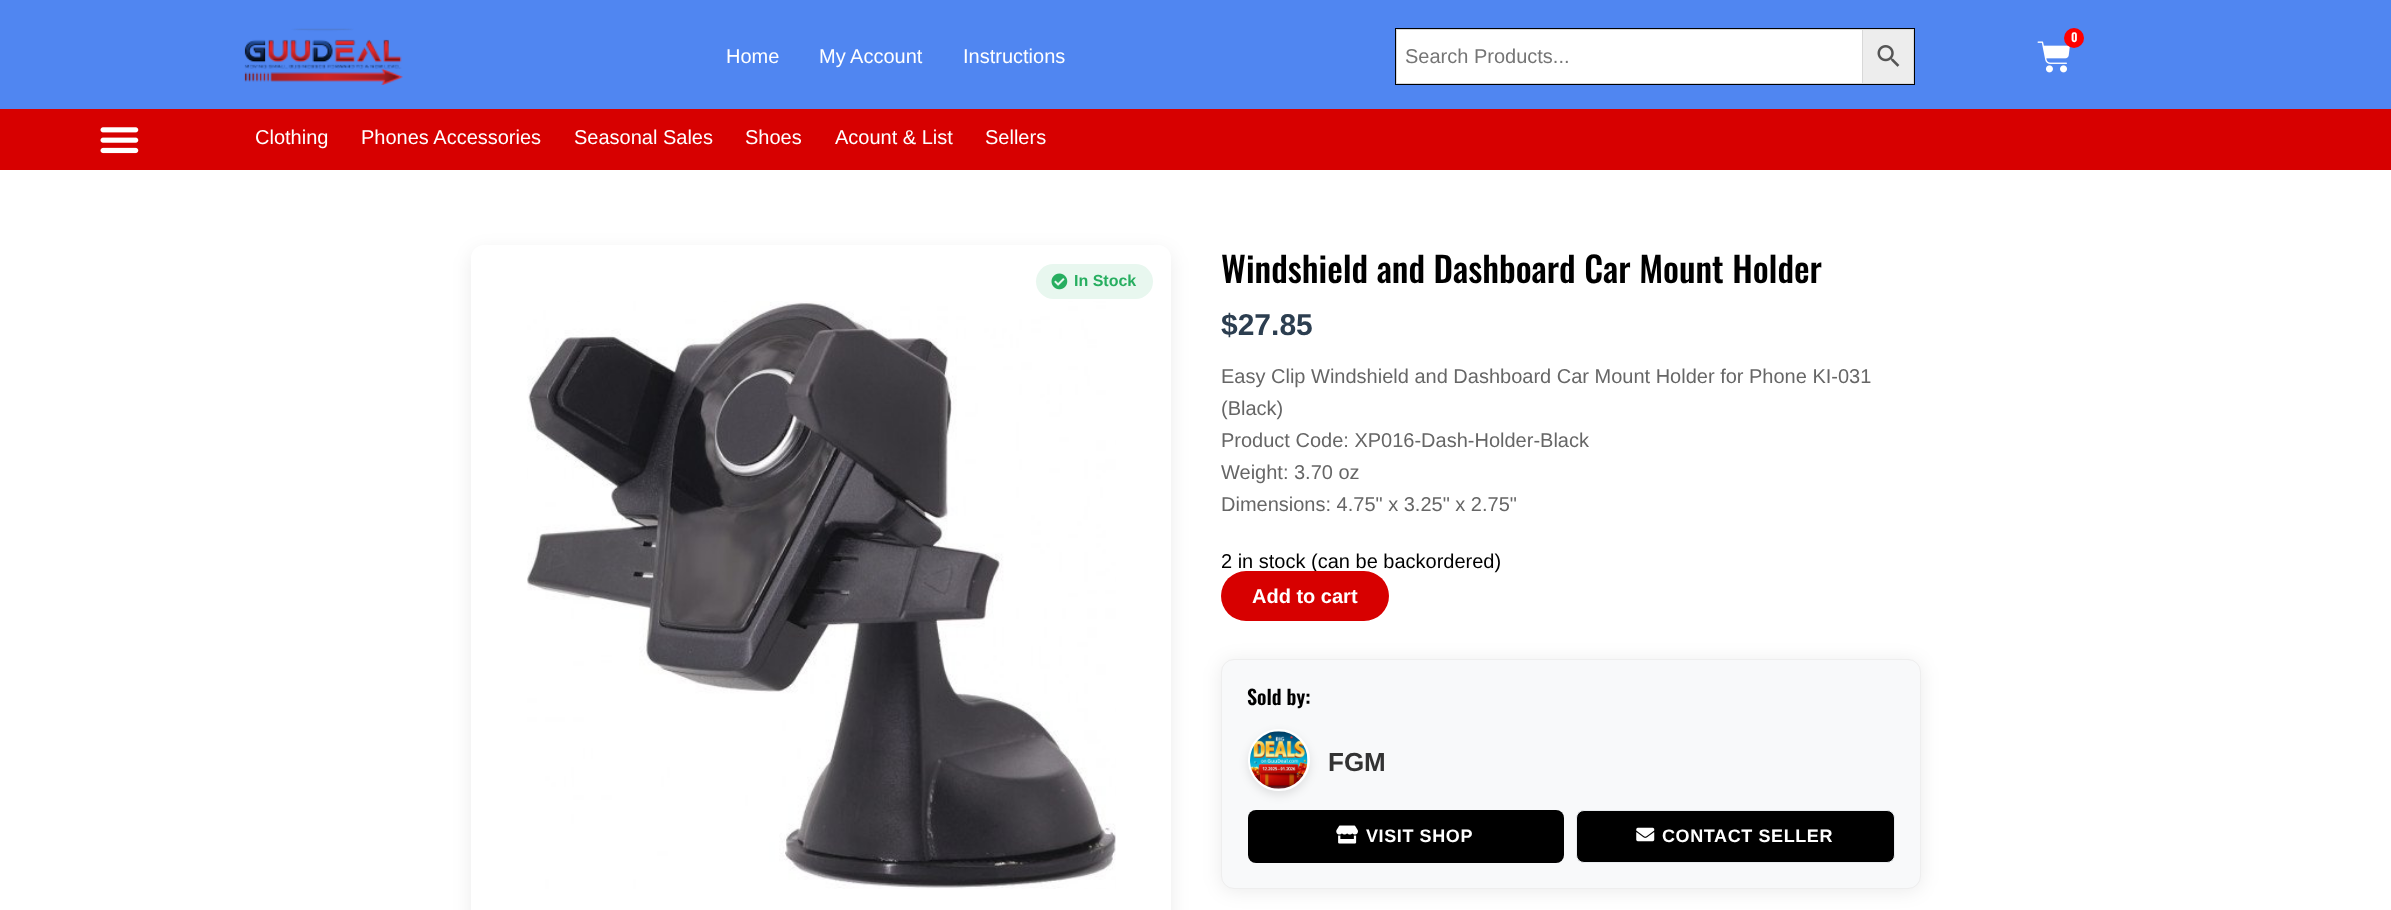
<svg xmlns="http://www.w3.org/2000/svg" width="2391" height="910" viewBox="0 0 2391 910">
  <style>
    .t1 { font: 600 12px Oswald; fill: #fff; }
    .t2 { font: 20px Liberation Sans; fill: #fff; }
    .t3 { font: 20px Liberation Sans; fill: #757575; }
    .t4 { font: bold 16px Liberation Sans; fill: #27ae60; }
    .t5 { font: 500 35px Oswald; fill: #000; }
    .t6 { font: bold 30px Liberation Sans; fill: #2c3e50; }
    .t7 { font: 20px Liberation Sans; fill: #666; }
    .t8 { font: 20px Liberation Sans; fill: #000; }
    .t9 { font: bold 20px Liberation Sans; fill: #fff; }
    .t10 { font: 600 20px Oswald; fill: #000; }
    .t11 { font: bold 26px Liberation Sans; fill: #333; }
    .t12 { font: bold 18px Liberation Sans; letter-spacing: 0.6px; fill: #fff; }
  </style>
  <rect width="100%" height="100%" fill="#fff"/>
  <rect x="0" y="0" width="2391" height="109" fill="#5086f1"/>
  <image x="244" y="28" width="159" height="57" href="images/1.png"/>
  <image x="2037" y="41" width="33" height="32" href="images/2.png"/>
  <circle cx="2074" cy="38" r="10" fill="#f00"/>
  <text x="2071" y="42" class="t1">0</text>
  <text x="726" y="63" class="t2">Home</text>
  <text x="819" y="63" class="t2">My Account</text>
  <text x="963" y="63" class="t2">Instructions</text>
  <rect x="1395.5" y="28.5" width="519" height="56" fill="none" stroke="#000"/>
  <rect x="1863" y="30" width="50" height="53" fill="#ededed"/>
  <rect x="1861.5" y="29.5" width="52" height="54" fill="none" stroke="#d8d8d8"/>
  <rect x="1396.5" y="29.5" width="466" height="54" fill="#fff" stroke="#d8d8d8"/>
  <text x="1405" y="63" class="t3">Search Products...</text>
  <image x="1877" y="45" width="23" height="22" href="images/3.png"/>
  <rect x="0" y="109" width="2391" height="61" fill="#d70000"/>
  <image x="100" y="127" width="39" height="27" href="images/4.png"/>
  <text x="255" y="144" class="t2">Clothing</text>
  <text x="361" y="144" class="t2">Phones Accessories</text>
  <text x="574" y="144" class="t2">Seasonal Sales</text>
  <text x="745" y="144" class="t2">Shoes</text>
  <text x="835" y="144" class="t2">Acount &amp; List</text>
  <text x="985" y="144" class="t2">Sellers</text>
  <rect x="471" y="251" width="700" height="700" rx="13" fill="#00000014" filter="blur(9.5px)"/>
  <rect x="471" y="245" width="700" height="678" rx="13" fill="#fff"/>
  <image x="527" y="301" width="589" height="588" href="images/5.png"/>
  <rect x="1036" y="264" width="117" height="35" rx="17.5" fill="#e8f7ef"/>
  <image x="1051" y="273" width="17" height="17" href="images/6.png"/>
  <text x="1074" y="286" class="t4">In Stock</text>
  <text x="1221" y="283" class="t5">Windshield and Dashboard Car Mount Holder</text>
  <text x="1221" y="335" class="t6">$27.85</text>
  <text x="1221" y="383" class="t7">Easy Clip Windshield and Dashboard Car Mount Holder for Phone KI-031</text>
  <text x="1221" y="415" class="t7">(Black)</text>
  <text x="1221" y="447" class="t7">Product Code: XP016-Dash-Holder-Black</text>
  <text x="1221" y="479" class="t7">Weight: 3.70 oz</text>
  <text x="1221" y="511" class="t7">Dimensions: 4.75" x 3.25" x 2.75"</text>
  <text x="1221" y="568" class="t8">2 in stock (can be backordered)</text>
  <rect x="1221" y="571" width="168" height="50" rx="25" fill="#d70000"/>
  <text x="1252" y="603" class="t9">Add to cart</text>
  <rect x="1221" y="661" width="700" height="230" rx="13" fill="#00000014" filter="blur(9.5px)"/>
  <rect x="1221.5" y="659.5" width="699" height="229" rx="12.5" fill="#f8f9fa" stroke="#eee"/>
  <text x="1247" y="705" class="t10">Sold by:</text>
  <rect x="1248" y="810" width="316" height="53" rx="8" fill="#000"/>
  <rect x="1248" y="733" width="62" height="62" rx="31" fill="#0000001a" filter="blur(5px)"/>
  <circle cx="1279" cy="760" r="29.5" fill="none" stroke="#fff" stroke-width="3"/>
  <image x="1250" y="731" width="58" height="58" href="images/7.png"/>
  <text x="1328" y="771" class="t11">FGM</text>
  <image x="1336" y="825" width="22" height="19" href="images/8.png"/>
  <text x="1366" y="842" class="t12">VISIT SHOP</text>
  <rect x="1576.5" y="810.5" width="318" height="52" rx="7.5" fill="#000" stroke="#e9ecef"/>
  <image x="1636" y="827" width="19" height="15" href="images/9.png"/>
  <text x="1662" y="842" class="t12">CONTACT SELLER</text>
</svg>
